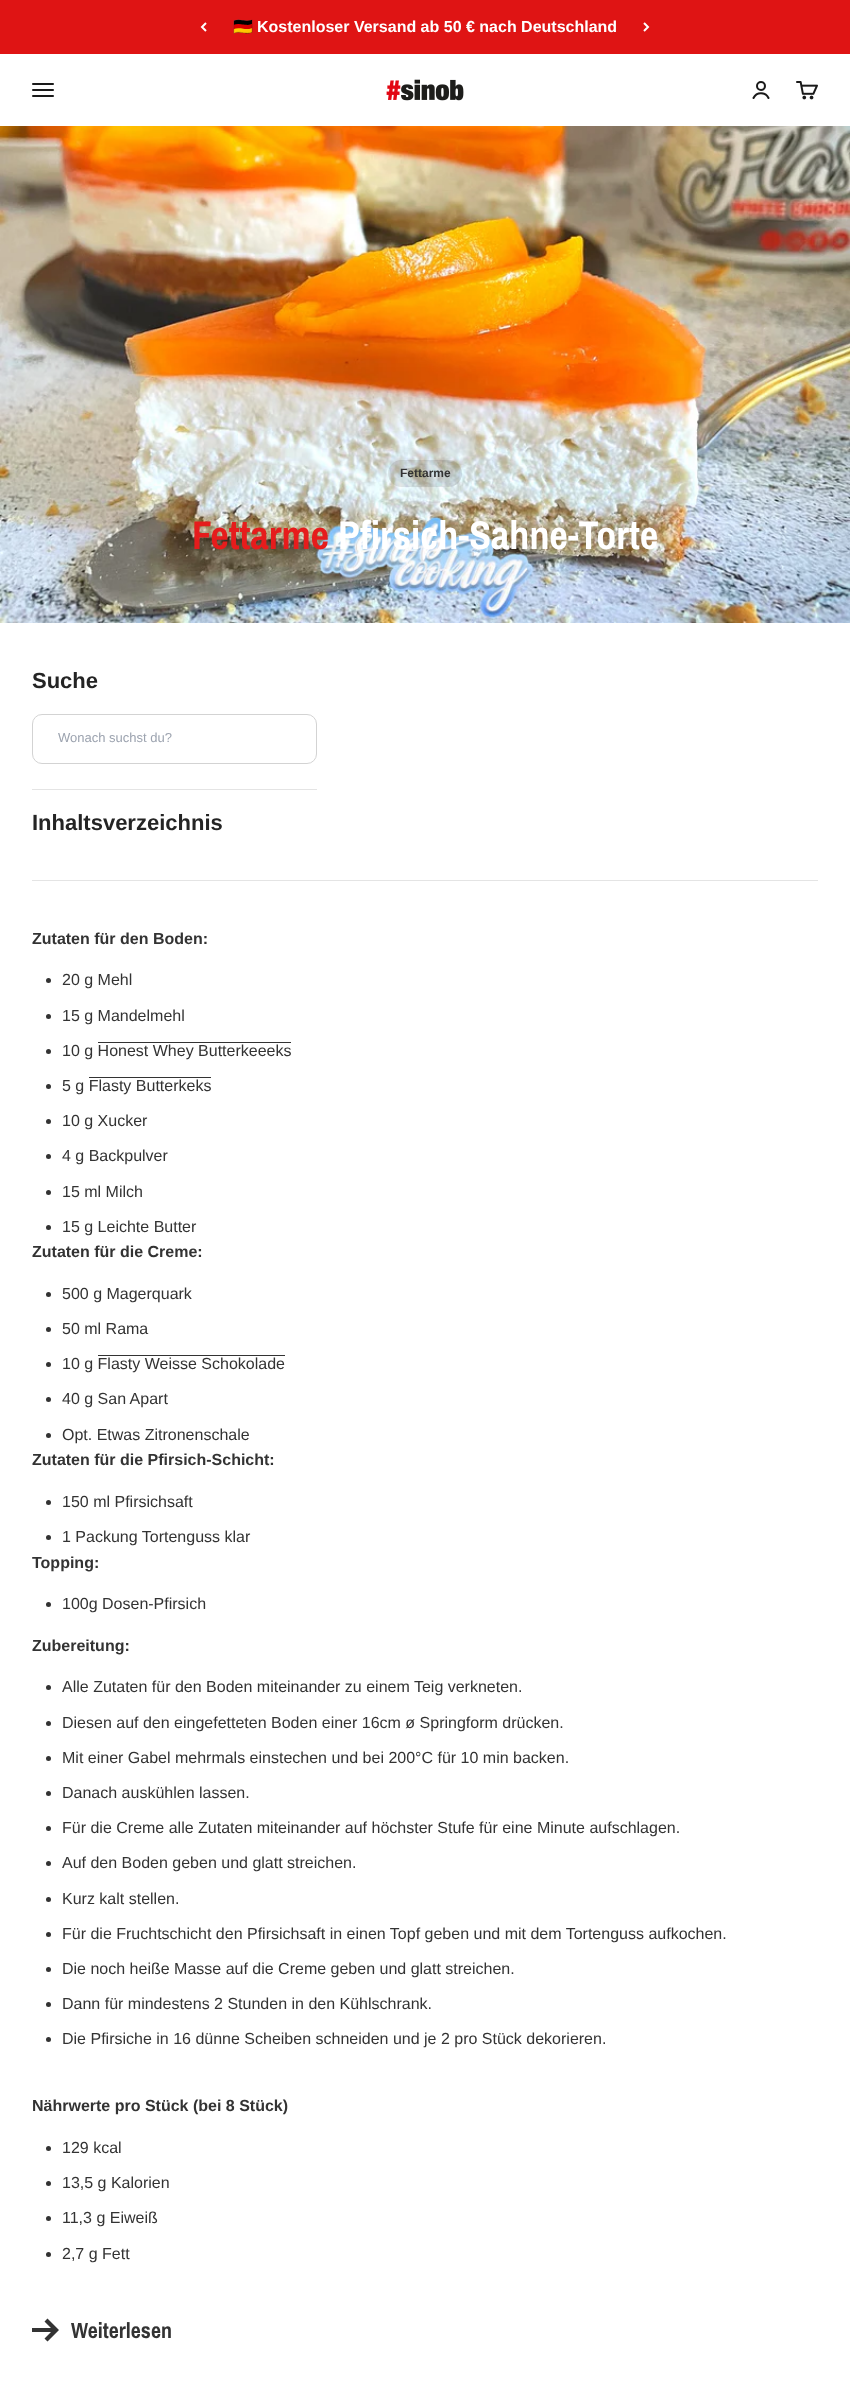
<svg xmlns="http://www.w3.org/2000/svg" width="850" height="2382" viewBox="0 0 850 2382">
  <style>
    .t1 { font: bold 16px Noto Color Emoji; fill: #fff; }
    .t2 { font: bold 16px Liberation Sans; fill: #fff; }
    .t3 { font: bold 12px Liberation Sans; fill: #333; }
    .t4 { font: bold 40px Archivo Narrow; fill: #e61c1c; }
    .t5 { font: bold 40px Archivo Narrow; fill: #fff; }
    .t6 { font: bold 22px Liberation Sans; fill: #242424; }
    .t7 { font: 13px Liberation Sans; fill: #9ca3af; }
    .t8 { font: bold 16px Liberation Sans; fill: #333; }
    .t9 { font: 16px Liberation Sans; fill: #333; }
    .t10 { font: bold 22px Archivo Narrow; fill: #333; }
  </style>
  <rect width="100%" height="100%" fill="#fff"/>
  <rect x="0" y="0" width="850" height="54" fill="#df1414"/>
  <path d="M206 23L202 27L206 31" fill="none" stroke="#fff" stroke-width="2"/>
  <text x="233" y="32" class="t1">🇩🇪</text>
  <text x="257" y="32" class="t2">Kostenloser Versand ab 50 € nach Deutschland</text>
  <path d="M644 31L648 27L644 23" fill="none" stroke="#fff" stroke-width="2"/>
  <image x="32" y="83" width="22" height="14" href="images/1.png"/>
  <image x="386" y="79" width="78" height="22" href="images/2.png"/>
  <circle cx="761" cy="86" r="4" fill="none" stroke="#1a1a1a" stroke-width="2"/>
  <path d="M753.5 98C756.5 91.5 765.5 91.5 768.5 98" fill="none" stroke="#1a1a1a" stroke-width="2" stroke-linecap="round"/>
  <image x="796" y="81" width="22" height="19" href="images/3.png"/>
  <image x="0" y="126" width="850" height="497" href="images/4.png"/>
  <rect x="388" y="460" width="74" height="27" rx="13.5" fill="#3333331f"/>
  <text x="400" y="477" class="t3">Fettarme</text>
  <text x="192" y="549" class="t4">Fettarme</text>
  <text x="338" y="549" class="t5">Pfirsich-Sahne-Torte</text>
  <text x="32" y="688" class="t6">Suche</text>
  <rect x="32" y="789" width="285" height="1" fill="#e4e4e4"/>
  <rect x="32.5" y="714.5" width="284" height="49" rx="9.5" fill="none" stroke="#d3d3d3"/>
  <text x="58" y="742" class="t7">Wonach suchst du?</text>
  <text x="32" y="830" class="t6">Inhaltsverzeichnis</text>
  <rect x="32" y="880" width="786" height="1" fill="#e4e4e4"/>
  <text x="32" y="944" class="t8">Zutaten für den Boden:</text>
  <circle cx="48.5" cy="980.5" r="2.5" fill="#333"/>
  <text x="62" y="985" class="t9">20 g Mehl</text>
  <circle cx="48.5" cy="1016.5" r="2.5" fill="#333"/>
  <text x="62" y="1021" class="t9">15 g Mandelmehl</text>
  <rect x="98" y="1042" width="193" height="1" fill="#333"/>
  <circle cx="48.5" cy="1051.5" r="2.5" fill="#333"/>
  <text x="62" y="1056" class="t9">10 g Honest Whey Butterkeeeks</text>
  <rect x="89" y="1077" width="122" height="1" fill="#333"/>
  <circle cx="48.5" cy="1086.5" r="2.5" fill="#333"/>
  <text x="62" y="1091" class="t9">5 g Flasty Butterkeks</text>
  <circle cx="48.5" cy="1121.5" r="2.5" fill="#333"/>
  <text x="62" y="1126" class="t9">10 g Xucker</text>
  <circle cx="48.5" cy="1156.5" r="2.5" fill="#333"/>
  <text x="62" y="1161" class="t9">4 g Backpulver</text>
  <circle cx="48.5" cy="1192.5" r="2.5" fill="#333"/>
  <text x="62" y="1197" class="t9">15 ml Milch</text>
  <circle cx="48.5" cy="1227.5" r="2.5" fill="#333"/>
  <text x="62" y="1232" class="t9">15 g Leichte Butter</text>
  <text x="32" y="1257" class="t8">Zutaten für die Creme:</text>
  <circle cx="48.5" cy="1294.5" r="2.5" fill="#333"/>
  <text x="62" y="1299" class="t9">500 g Magerquark</text>
  <circle cx="48.5" cy="1329.5" r="2.5" fill="#333"/>
  <text x="62" y="1334" class="t9">50 ml Rama</text>
  <rect x="98" y="1355" width="187" height="1" fill="#333"/>
  <circle cx="48.5" cy="1364.5" r="2.5" fill="#333"/>
  <text x="62" y="1369" class="t9">10 g Flasty Weisse Schokolade</text>
  <circle cx="48.5" cy="1399.5" r="2.5" fill="#333"/>
  <text x="62" y="1404" class="t9">40 g San Apart</text>
  <circle cx="48.5" cy="1435.5" r="2.5" fill="#333"/>
  <text x="62" y="1440" class="t9">Opt. Etwas Zitronenschale</text>
  <text x="32" y="1465" class="t8">Zutaten für die Pfirsich-Schicht:</text>
  <circle cx="48.5" cy="1502.5" r="2.5" fill="#333"/>
  <text x="62" y="1507" class="t9">150 ml Pfirsichsaft</text>
  <circle cx="48.5" cy="1537.5" r="2.5" fill="#333"/>
  <text x="62" y="1542" class="t9">1 Packung Tortenguss klar</text>
  <text x="32" y="1568" class="t8">Topping:</text>
  <circle cx="48.5" cy="1604.5" r="2.5" fill="#333"/>
  <text x="62" y="1609" class="t9">100g Dosen-Pfirsich</text>
  <text x="32" y="1651" class="t8">Zubereitung:</text>
  <circle cx="48.5" cy="1687.5" r="2.5" fill="#333"/>
  <text x="62" y="1692" class="t9">Alle Zutaten für den Boden miteinander zu einem Teig verkneten.</text>
  <circle cx="48.5" cy="1723.5" r="2.5" fill="#333"/>
  <text x="62" y="1728" class="t9">Diesen auf den eingefetteten Boden einer 16cm ø Springform drücken.</text>
  <circle cx="48.5" cy="1758.5" r="2.5" fill="#333"/>
  <text x="62" y="1763" class="t9">Mit einer Gabel mehrmals einstechen und bei 200°C für 10 min backen.</text>
  <circle cx="48.5" cy="1793.5" r="2.5" fill="#333"/>
  <text x="62" y="1798" class="t9">Danach auskühlen lassen.</text>
  <circle cx="48.5" cy="1828.5" r="2.5" fill="#333"/>
  <text x="62" y="1833" class="t9">Für die Creme alle Zutaten miteinander auf höchster Stufe für eine Minute aufschlagen.</text>
  <circle cx="48.5" cy="1863.5" r="2.5" fill="#333"/>
  <text x="62" y="1868" class="t9">Auf den Boden geben und glatt streichen.</text>
  <circle cx="48.5" cy="1899.5" r="2.5" fill="#333"/>
  <text x="62" y="1904" class="t9">Kurz kalt stellen.</text>
  <circle cx="48.5" cy="1934.5" r="2.5" fill="#333"/>
  <text x="62" y="1939" class="t9">Für die Fruchtschicht den Pfirsichsaft in einen Topf geben und mit dem Tortenguss aufkochen.</text>
  <circle cx="48.5" cy="1969.5" r="2.5" fill="#333"/>
  <text x="62" y="1974" class="t9">Die noch heiße Masse auf die Creme geben und glatt streichen.</text>
  <circle cx="48.5" cy="2004.5" r="2.5" fill="#333"/>
  <text x="62" y="2009" class="t9">Dann für mindestens 2 Stunden in den Kühlschrank.</text>
  <circle cx="48.5" cy="2039.5" r="2.5" fill="#333"/>
  <text x="62" y="2044" class="t9">Die Pfirsiche in 16 dünne Scheiben schneiden und je 2 pro Stück dekorieren.</text>
  <text x="32" y="2111" class="t8">Nährwerte pro Stück (bei 8 Stück)</text>
  <circle cx="48.5" cy="2148.5" r="2.5" fill="#333"/>
  <text x="62" y="2153" class="t9">129 kcal</text>
  <circle cx="48.5" cy="2183.5" r="2.5" fill="#333"/>
  <text x="62" y="2188" class="t9">13,5 g Kalorien</text>
  <circle cx="48.5" cy="2218.5" r="2.5" fill="#333"/>
  <text x="62" y="2223" class="t9">11,3 g Eiweiß</text>
  <circle cx="48.5" cy="2254.5" r="2.5" fill="#333"/>
  <text x="62" y="2259" class="t9">2,7 g Fett</text>
  <path d="M47.5 2318.5L59 2330L47.5 2341.5L44.5 2338.5L51 2332H32V2328H51L44.5 2321.5Z" fill="#333" fill-rule="evenodd"/>
  <text x="71" y="2338" class="t10">Weiterlesen</text>
</svg>
